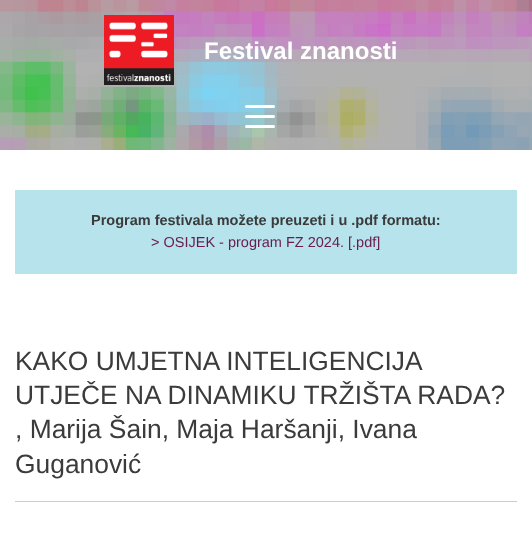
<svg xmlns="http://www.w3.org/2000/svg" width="532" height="551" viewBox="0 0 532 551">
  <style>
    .t1 { font: bold 24px Liberation Sans; fill: #fff; }
    .t2 { font: bold 14.5px Liberation Sans; fill: #3b3b3b; }
    .t3 { font: 14.5px Liberation Sans; fill: #691c4f; }
    .t4 { font: 26.4px Liberation Sans; fill: #3b3b3b; }
  </style>
  <rect width="100%" height="100%" fill="#fff"/>
  <image x="0" y="0" width="532" height="150" href="images/1.png"/>
  <image x="104" y="15" width="70" height="70" href="images/2.png"/>
  <text x="204" y="59" class="t1">Festival znanosti</text>
  <rect x="245" y="105" width="30" height="3" rx="1.5" fill="#fff"/>
  <rect x="245" y="115" width="30" height="3" rx="1.5" fill="#fff"/>
  <rect x="245" y="125" width="30" height="3" rx="1.5" fill="#fff"/>
  <rect x="15" y="190" width="502" height="84" fill="#b7e3ec"/>
  <text x="91" y="225" class="t2">Program festivala možete preuzeti i u .pdf formatu:</text>
  <text x="151" y="247" class="t3">&gt; OSIJEK - program FZ 2024. [.pdf]</text>
  <rect x="15" y="501" width="502" height="1" fill="#ccc"/>
  <text x="15" y="370" class="t4">KAKO UMJETNA INTELIGENCIJA</text>
  <text x="15" y="404" class="t4">UTJEČE NA DINAMIKU TRŽIŠTA RADA?</text>
  <text x="15" y="438" class="t4">, Marija Šain, Maja Haršanji, Ivana</text>
  <text x="15" y="473" class="t4">Guganović</text>
</svg>
